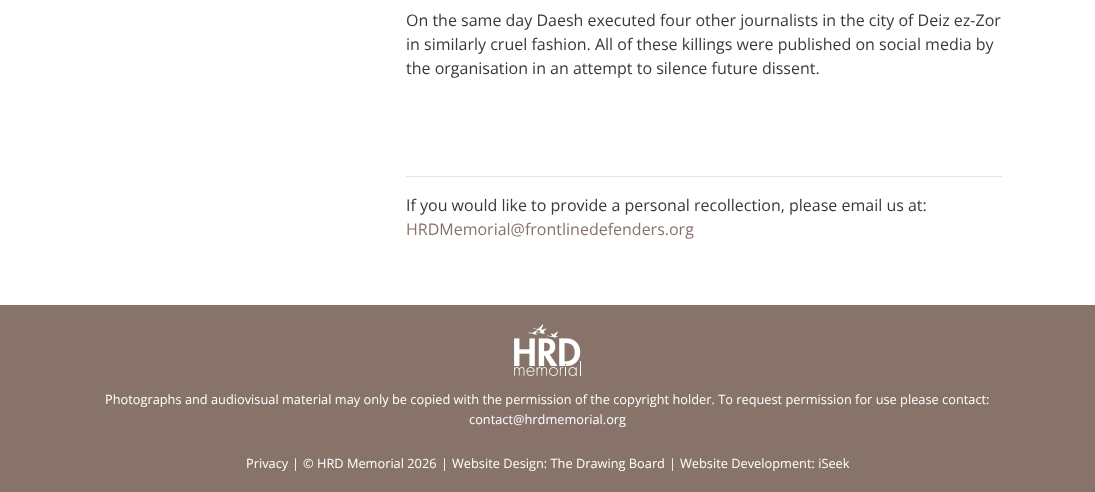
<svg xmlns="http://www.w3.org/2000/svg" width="1095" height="492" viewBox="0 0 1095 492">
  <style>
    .t1 { font: 16px Open Sans; fill: #373a3c; }
    .t2 { font: 16px Open Sans; fill: #87736a; }
    .t3 { font: 12.8px Open Sans; fill: #fff; }
  </style>
  <rect width="100%" height="100%" fill="#fff"/>
  <text x="406" y="26" class="t1">On the same day Daesh executed four other journalists in the city of Deiz ez-Zor</text>
  <text x="406" y="50" class="t1">in similarly cruel fashion. All of these killings were published on social media by</text>
  <text x="406" y="74" class="t1">the organisation in an attempt to silence future dissent.</text>
  <rect x="406" y="176" width="596" height="1" fill="#e6e6e6"/>
  <text x="406" y="211" class="t1">If you would like to provide a personal recollection, please email us at:</text>
  <text x="406" y="235" class="t2">HRDMemorial@frontlinedefenders.org</text>
  <rect x="0" y="305" width="1095" height="187" fill="#87736a"/>
  <image x="514" y="324" width="67" height="52" href="images/1.png"/>
  <text x="105" y="404" class="t3">Photographs and audiovisual material may only be copied with the permission of the copyright holder. To request permission for use please contact:</text>
  <text x="469" y="424" class="t3">contact@hrdmemorial.org</text>
  <text x="246" y="468" class="t3">Privacy</text>
  <text x="292" y="468" class="t3">|</text>
  <text x="303" y="468" class="t3">© HRD Memorial 2026</text>
  <text x="441" y="468" class="t3">|</text>
  <text x="452" y="468" class="t3">Website Design: The Drawing Board</text>
  <text x="669" y="468" class="t3">|</text>
  <text x="680" y="468" class="t3">Website Development: iSeek</text>
</svg>
